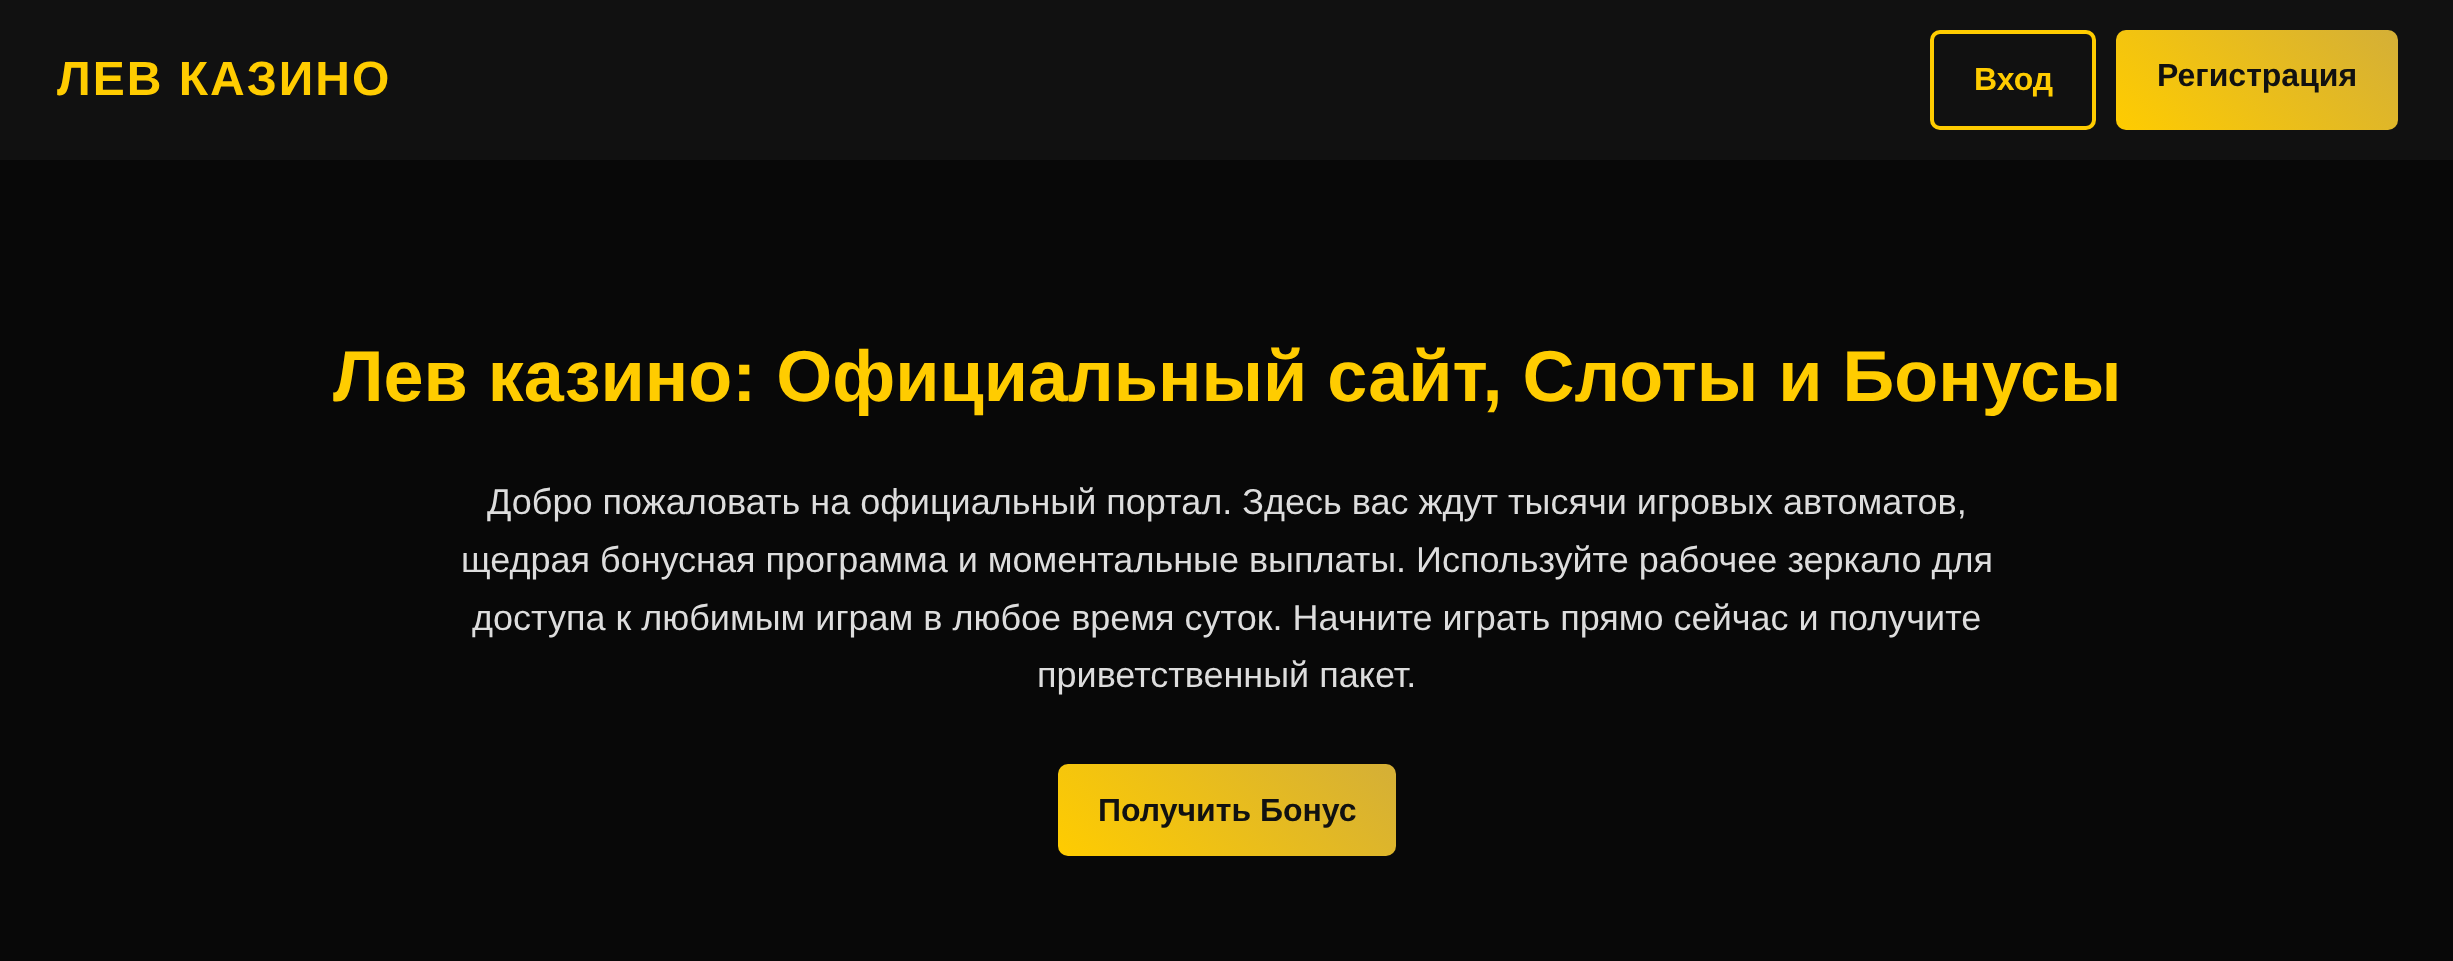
<svg xmlns="http://www.w3.org/2000/svg" width="2453" height="961" viewBox="0 0 2453 961">
  <style>
    .t1 { font: bold 48px Liberation Sans; letter-spacing: 2px; fill: #fc0; }
    .t2 { font: bold 32px Liberation Sans; fill: #fc0; }
    .t3 { font: bold 32px Liberation Sans; fill: #111; }
    .t4 { font: bold 72px Liberation Sans; fill: #fc0; }
    .t5 { font: 36px Liberation Sans; fill: #ddd; }
  </style>
  <defs>
    <linearGradient id="g1" gradientUnits="userSpaceOnUse" x1="2162" y1="176" x2="2353" y2="-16"><stop offset="0" stop-color="#fc0"/><stop offset="1" stop-color="#d4af37"/></linearGradient>
    <linearGradient id="g2" gradientUnits="userSpaceOnUse" x1="1120" y1="918" x2="1335" y2="703"><stop offset="0" stop-color="#fc0"/><stop offset="1" stop-color="#d4af37"/></linearGradient>
  </defs>
  <rect width="100%" height="100%" fill="#080808"/>
  <rect x="0" y="0" width="2453" height="160" fill="#111"/>
  <text x="57" y="95" class="t1">ЛЕВ КАЗИНО</text>
  <rect x="1932" y="32" width="162" height="96" rx="8" fill="none" stroke="#fc0" stroke-width="4"/>
  <text x="1974" y="90" class="t2">Вход</text>
  <rect x="2116" y="30" width="282" height="100" rx="10" fill="url(#g1)"/>
  <text x="2157" y="86" class="t3">Регистрация</text>
  <text x="333" y="401" class="t4">Лев казино: Официальный сайт, Слоты и Бонусы</text>
  <text x="487" y="514" class="t5">Добро пожаловать на официальный портал. Здесь вас ждут тысячи игровых автоматов,</text>
  <text x="461" y="572" class="t5">щедрая бонусная программа и моментальные выплаты. Используйте рабочее зеркало для</text>
  <text x="472" y="630" class="t5">доступа к любимым играм в любое время суток. Начните играть прямо сейчас и получите</text>
  <text x="1037" y="687" class="t5">приветственный пакет.</text>
  <rect x="1058" y="764" width="338" height="92" rx="10" fill="url(#g2)"/>
  <text x="1098" y="821" class="t3">Получить Бонус</text>
</svg>
